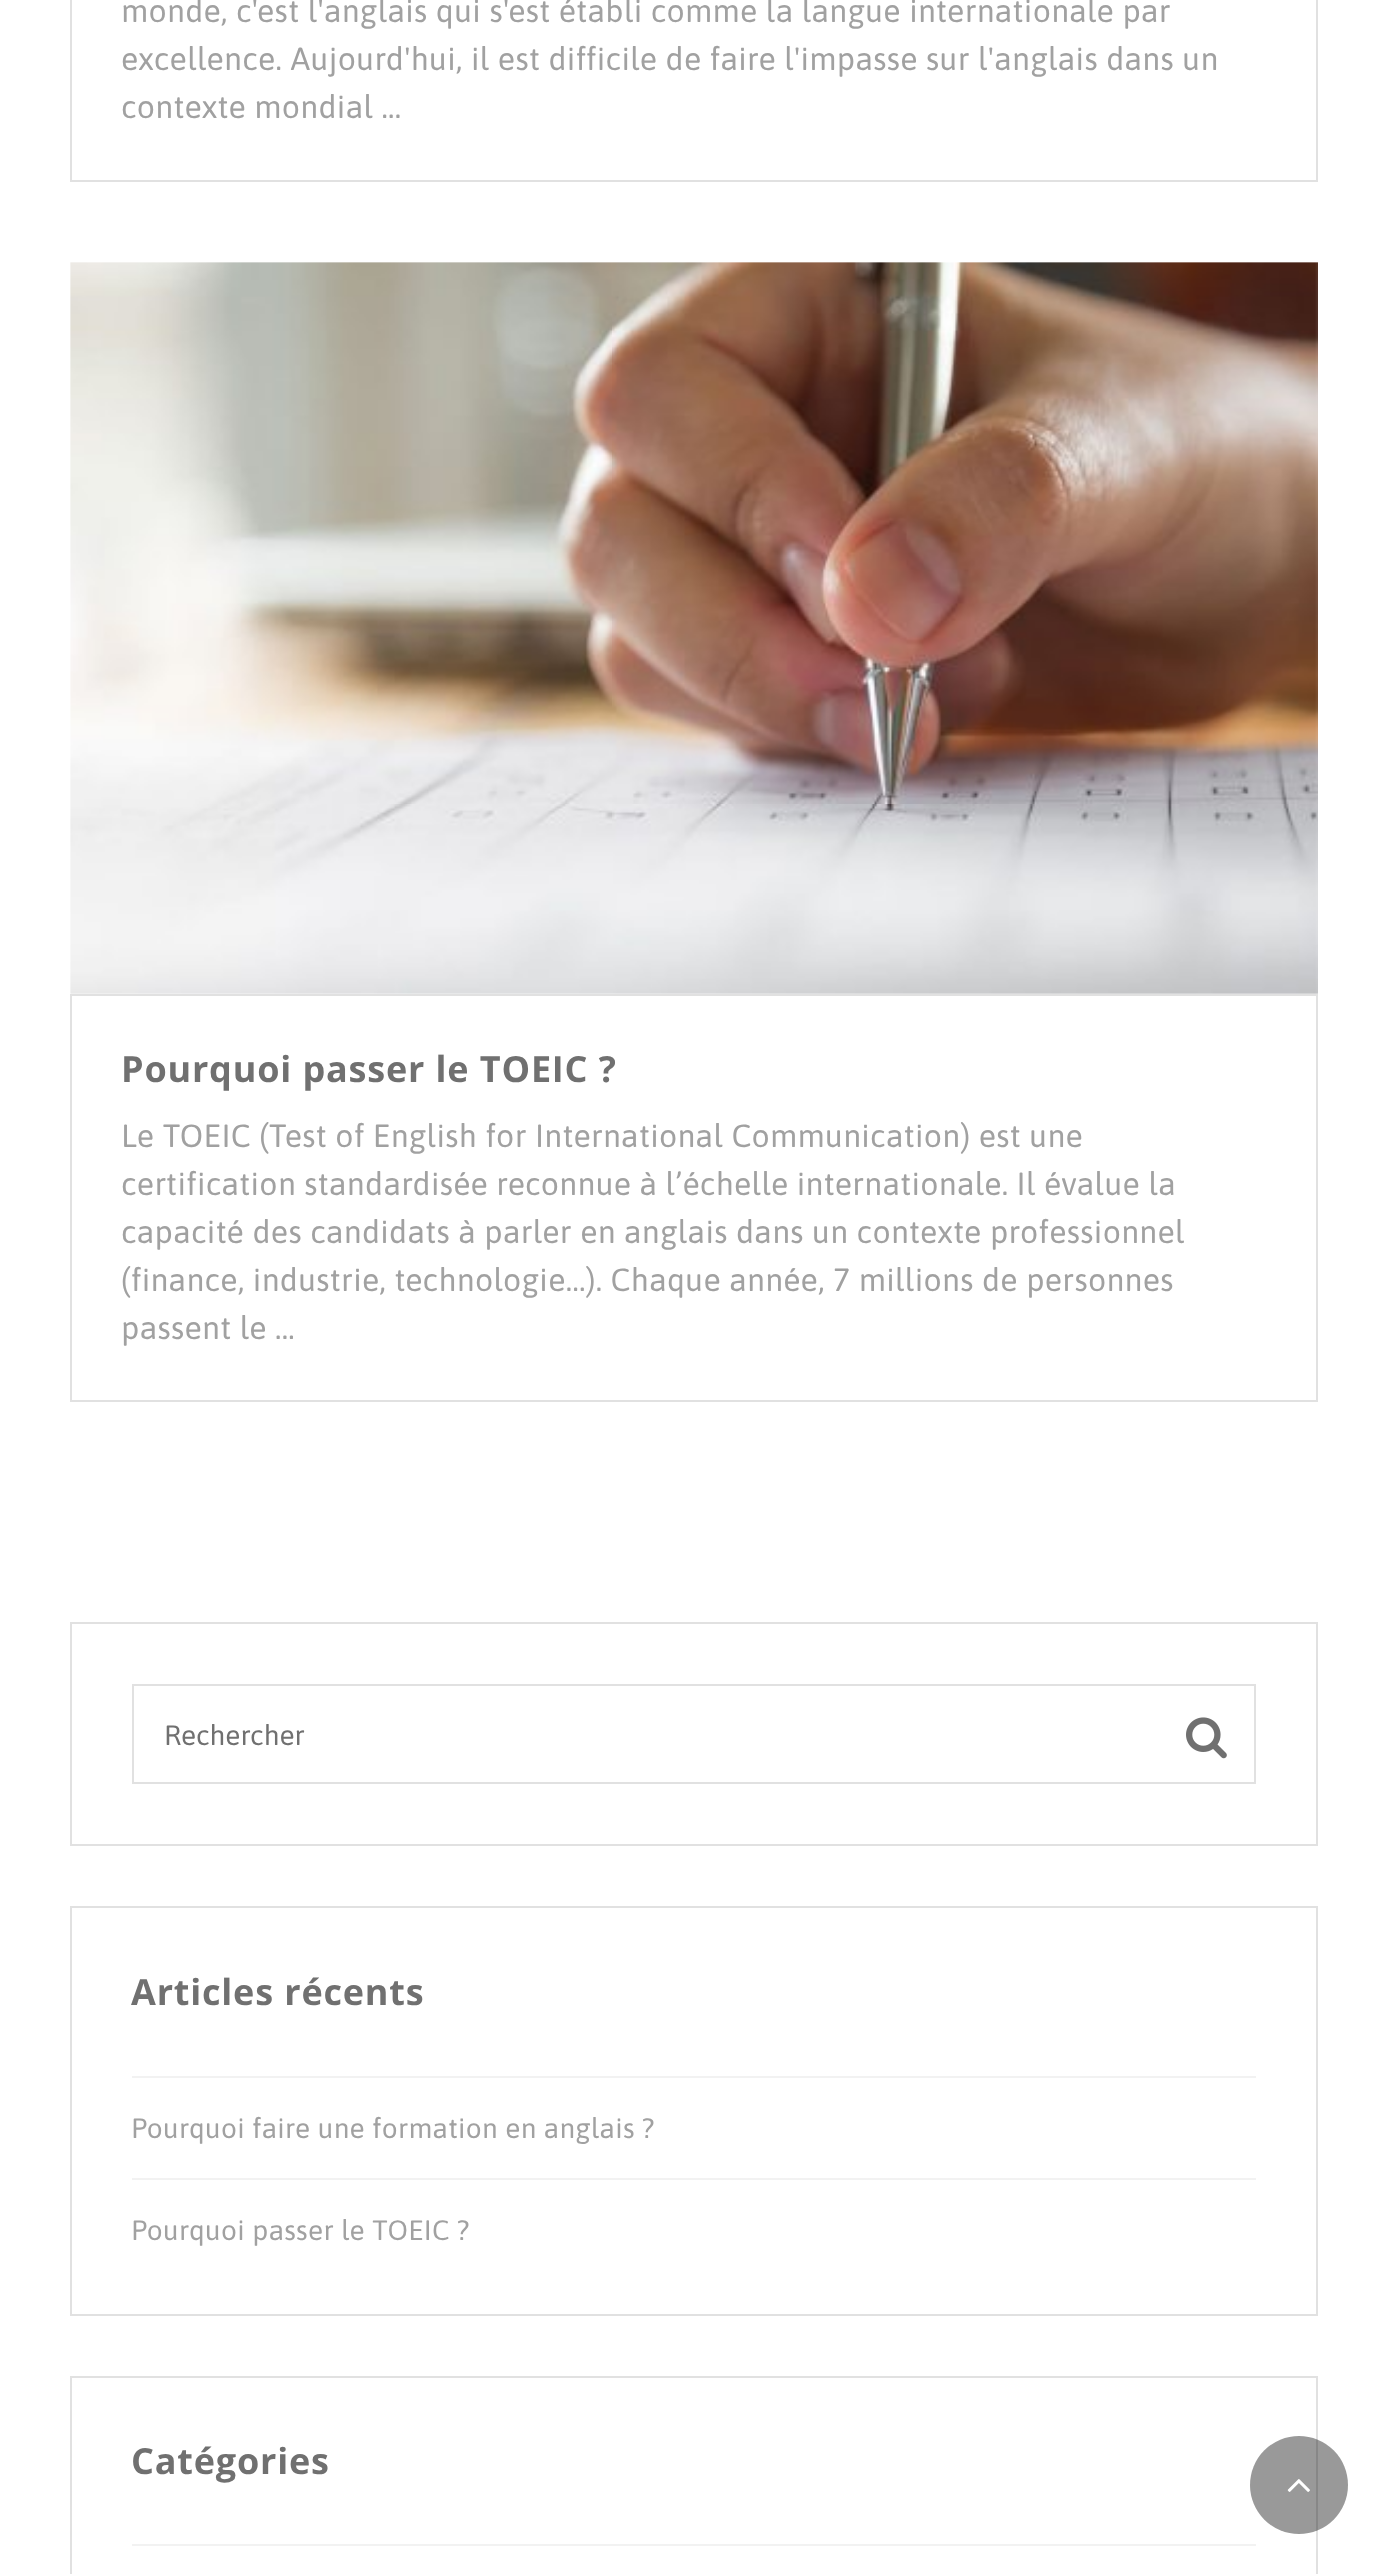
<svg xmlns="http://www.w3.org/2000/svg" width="1387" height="2574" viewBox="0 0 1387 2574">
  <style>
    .t1 { font: 32px Asap; letter-spacing: 0.32px; fill: #a1a1a1; }
    .t2 { font: bold 36px Open Sans; letter-spacing: 0.8px; fill: #707070; }
    .t3 { font: 28px Asap; fill: #707070; }
    .t4 { font: 28px Asap; letter-spacing: 0.32px; fill: #a1a1a1; }
  </style>
  <rect width="100%" height="100%" fill="#fff"/>
  <rect x="71" y="-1" width="1246" height="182" fill="none" stroke="#e1e1e1" stroke-width="2"/>
  <text x="121" y="22" word-spacing="0.25" class="t1">monde, c'est l'anglais qui s'est établi comme la langue internationale par</text>
  <text x="121" y="70" word-spacing="0.25" class="t1">excellence. Aujourd'hui, il est difficile de faire l'impasse sur l'anglais dans un</text>
  <text x="121" y="118" word-spacing="0.25" class="t1">contexte mondial ...</text>
  <image x="70" y="262" width="1248" height="732" href="images/1.png"/>
  <rect x="71" y="995" width="1246" height="406" fill="none" stroke="#e1e1e1" stroke-width="2"/>
  <text x="121" y="1082" word-spacing="0.25" class="t2">Pourquoi passer le TOEIC ?</text>
  <text x="121" y="1147" word-spacing="0.25" class="t1">Le TOEIC (Test of English for International Communication) est une</text>
  <text x="121" y="1195" word-spacing="0.25" class="t1">certification standardisée reconnue à l’échelle internationale. Il évalue la</text>
  <text x="121" y="1243" word-spacing="0.25" class="t1">capacité des candidats à parler en anglais dans un contexte professionnel</text>
  <text x="121" y="1291" word-spacing="0.25" class="t1">(finance, industrie, technologie…). Chaque année, 7 millions de personnes</text>
  <text x="121" y="1339" word-spacing="0.25" class="t1">passent le ...</text>
  <rect x="71" y="1623" width="1246" height="222" fill="none" stroke="#e1e1e1" stroke-width="2"/>
  <rect x="133" y="1685" width="1122" height="98" fill="none" stroke="#e1e1e1" stroke-width="2"/>
  <text x="164" y="1745" class="t3">Rechercher</text>
  <image x="1186" y="1717" width="41" height="42" href="images/2.png"/>
  <rect x="71" y="1907" width="1246" height="408" fill="none" stroke="#e1e1e1" stroke-width="2"/>
  <text x="131" y="2005" word-spacing="0.25" class="t2">Articles récents</text>
  <rect x="132" y="2076" width="1124" height="2" fill="#f2f2f2"/>
  <text x="131" y="2138" word-spacing="0.25" class="t4">Pourquoi faire une formation en anglais ?</text>
  <rect x="132" y="2178" width="1124" height="2" fill="#f2f2f2"/>
  <text x="131" y="2240" word-spacing="0.25" class="t4">Pourquoi passer le TOEIC ?</text>
  <rect x="71" y="2377" width="1246" height="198" fill="none" stroke="#e1e1e1" stroke-width="2"/>
  <text x="131" y="2474" class="t2">Catégories</text>
  <rect x="132" y="2544" width="1124" height="2" fill="#f2f2f2"/>
  <circle cx="1299" cy="2485" r="49" fill="#00000066"/>
  <image x="1287" y="2479" width="23" height="13" href="images/3.png"/>
</svg>
